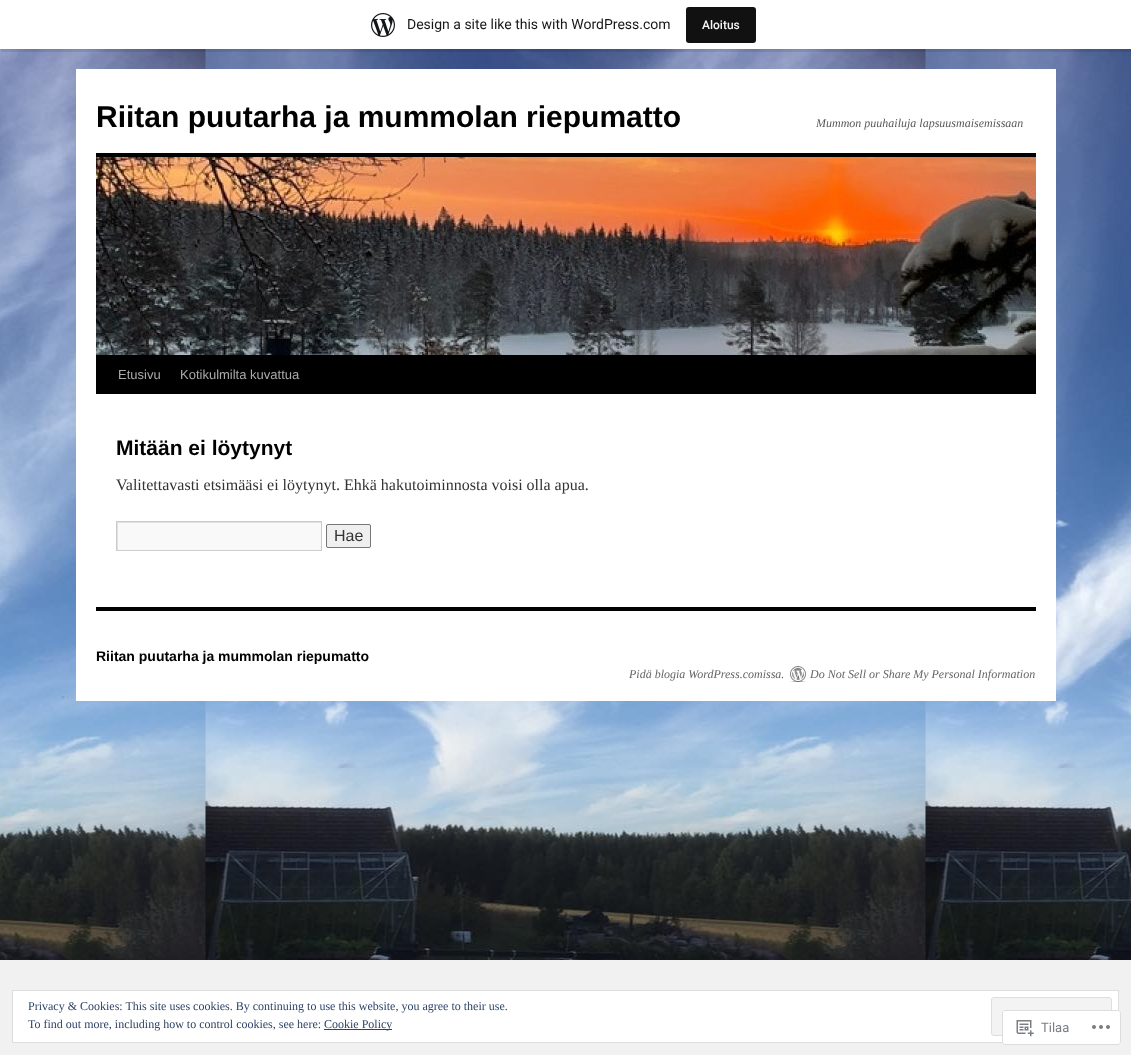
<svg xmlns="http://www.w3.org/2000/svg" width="1131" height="1055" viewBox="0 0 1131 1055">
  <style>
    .t1 { font: 14px Roboto; fill: #171717; }
    .t2 { font: 500 12px Roboto; fill: #f6f7f7; }
    .t3 { font: bold 30px Liberation Sans; fill: #000; }
    .t4 { font: italic 12px Liberation Serif; fill: #595959; }
    .t5 { font: 13px Liberation Sans; fill: #aaa; }
    .t6 { font: bold 21px Liberation Sans; fill: #000; }
    .t7 { font: 16px Liberation Serif; fill: #333; }
    .t8 { font: 16px Liberation Sans; fill: #333; }
    .t9 { font: bold 14px Liberation Sans; fill: #000; }
    .t10 { font: italic 12px Liberation Serif; fill: #666; }
    .t11 { font: 12px Liberation Serif; fill: #2e4467; }
    .t12 { font: 13px Roboto; fill: #7a7e84; }
  </style>
  <defs>
    <clipPath id="clip1"><rect x="117" y="522" width="204" height="28"/></clipPath>
  </defs>
  <rect width="100%" height="100%" fill="#f1f1f1"/>
  <image x="0" y="49" width="1131" height="911" href="images/1.png"/>
  <rect x="0" y="1" width="1131" height="49" fill="#0000000d" filter="blur(1px)"/>
  <path d="M1 49V52H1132V3H1131V49Z" fill="#00000014"/>
  <rect x="0" y="0" width="1131" height="49" fill="#fff"/>
  <image x="371" y="13" width="24" height="24" href="images/2.png"/>
  <text x="407" y="29" class="t1">Design a site like this with WordPress.com</text>
  <rect x="686" y="7" width="70" height="36" rx="3" fill="#111"/>
  <text x="702" y="29" class="t2">Aloitus</text>
  <rect x="76" y="69" width="980" height="632" fill="#fff"/>
  <text x="96" y="127" class="t3">Riitan puutarha ja mummolan riepumatto</text>
  <text x="816" y="127" class="t4">Mummon puuhailuja lapsuusmaisemissaan</text>
  <rect x="96" y="153" width="940" height="4" fill="#000"/>
  <rect x="96" y="355" width="940" height="39" fill="#000"/>
  <image x="96" y="157" width="940" height="198" href="images/3.png"/>
  <text x="118" y="379" class="t5">Etusivu</text>
  <text x="180" y="379" class="t5">Kotikulmilta kuvattua</text>
  <text x="116" y="455" class="t6">Mitään ei löytynyt</text>
  <text x="116" y="490" class="t7">Valitettavasti etsimääsi ei löytynyt. Ehkä hakutoiminnosta voisi olla apua.</text>
  <rect x="118" y="523" width="203" height="27" fill="#f9f9f9"/>
  <g clip-path="url(#clip1)">
    <path d="M18 423H420V649H18ZM118 523H322V551H118Z" fill="#e0e0e0" fill-rule="evenodd"/>
  </g>
  <rect x="116.5" y="521.5" width="205" height="29" fill="none" stroke="#ccc"/>
  <rect x="326.5" y="524.5" width="44" height="23" rx="1.5" fill="#efefef" stroke="#767676"/>
  <text x="334" y="541" class="t8">Hae</text>
  <rect x="96" y="607" width="940" height="4" fill="#000"/>
  <text x="96" y="661" class="t9">Riitan puutarha ja mummolan riepumatto</text>
  <text x="629" y="678" class="t10">Pidä blogia WordPress.comissa.</text>
  <image x="790" y="666" width="16" height="16" href="images/4.png"/>
  <text x="810" y="678" class="t10">Do Not Sell or Share My Personal Information</text>
  <rect x="12.5" y="990.5" width="1106" height="52" fill="#fff" stroke="#dedede"/>
  <text x="28" y="1010" class="t11">Privacy &amp; Cookies: This site uses cookies. By continuing to use this website, you agree to their use.</text>
  <rect x="991.5" y="997.5" width="120" height="38" rx="2.5" fill="#f3f3f3" stroke="#dedede"/>
  <text x="28" y="1028" class="t11">To find out more, including how to control cookies, see here:</text>
  <rect x="324" y="1029" width="68" height="1" fill="#2e4467"/>
  <text x="324" y="1028" class="t11">Cookie Policy</text>
  <rect x="1002" y="1010" width="119" height="35" rx="3" fill="#fffffffa"/>
  <rect x="1002.5" y="1010.5" width="118" height="34" rx="2.5" fill="none" stroke="#dcdcdefa"/>
  <image x="1016" y="1020" width="18" height="17" href="images/5.png"/>
  <text x="1041" y="1032" class="t12">Tilaa</text>
  <image x="1092" y="1025" width="18" height="4" href="images/6.png"/>
</svg>
